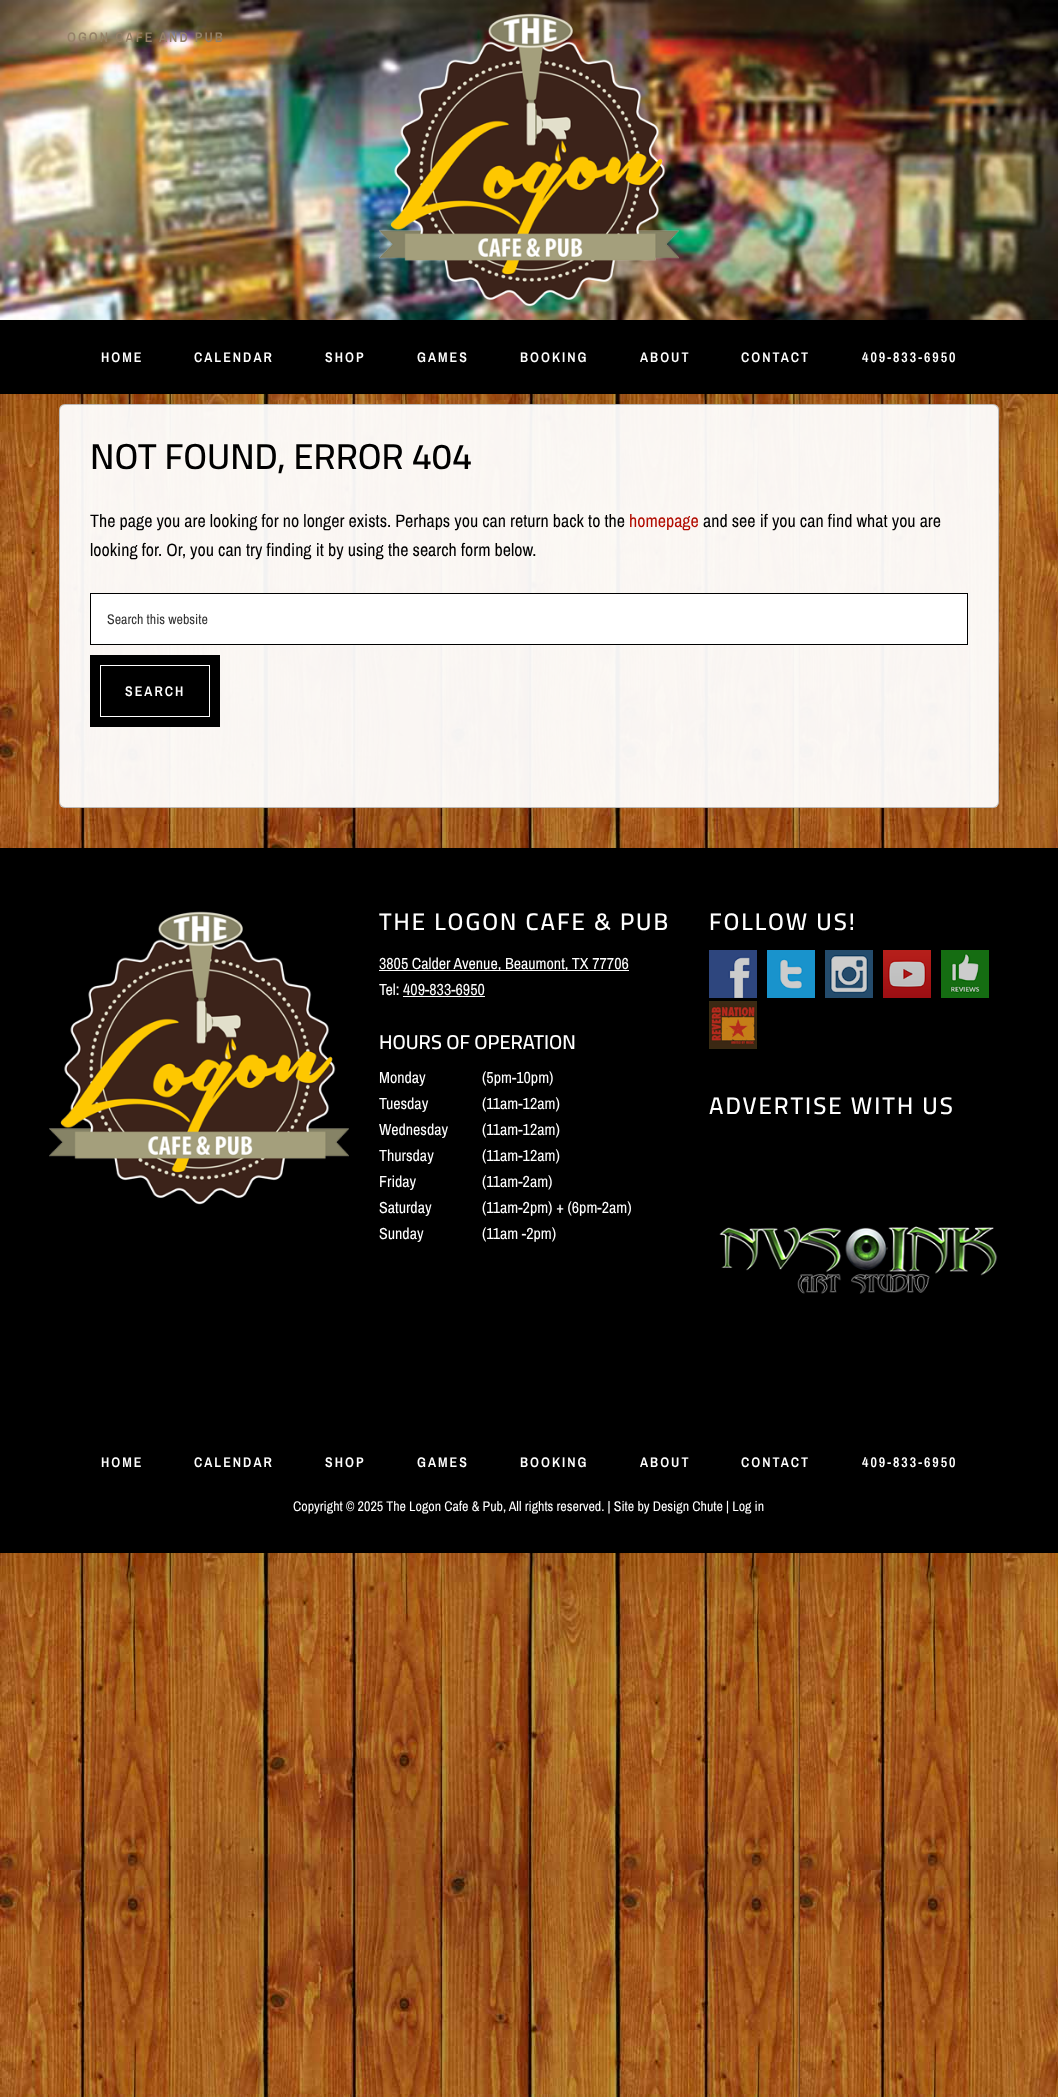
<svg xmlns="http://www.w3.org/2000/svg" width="1058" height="2097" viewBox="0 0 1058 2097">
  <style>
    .t1 { font: 600 14px Archivo Narrow; letter-spacing: 2px; fill: #958167; }
    .t2 { font: 600 14px Archivo Narrow; letter-spacing: 2px; fill: #fff; }
    .t3 { font: 600 36px Cairo; fill: #000; }
    .t4 { font: 18px Archivo Narrow; fill: #000; }
    .t5 { font: 18px Archivo Narrow; fill: #b20b00; }
    .t6 { font: 14px Archivo Narrow; fill: #333; }
    .t7 { font: 600 24px Cairo; letter-spacing: 2px; fill: #fff; }
    .t8 { font: 16px Archivo Narrow; fill: #fff; }
    .t9 { font: 600 20px Cairo; fill: #fff; }
    .t10 { font: 14px Archivo Narrow; fill: #fff; }
  </style>
  <rect width="100%" height="100%" fill="#fff"/>
  <image x="0" y="394" width="1058" height="1703" href="images/1.png"/>
  <image x="0" y="0" width="1058" height="320" href="images/2.png"/>
  <image x="379" y="13" width="300" height="294" href="images/3.png"/>
  <rect x="0" y="320" width="1058" height="74" fill="#000"/>
  <text x="67" y="42" class="t1">OGON CAFE AND PUB</text>
  <text x="101" y="362" class="t2">HOME</text>
  <text x="194" y="362" class="t2">CALENDAR</text>
  <text x="325" y="362" class="t2">SHOP</text>
  <text x="417" y="362" class="t2">GAMES</text>
  <text x="520" y="362" class="t2">BOOKING</text>
  <text x="640" y="362" class="t2">ABOUT</text>
  <text x="741" y="362" class="t2">CONTACT</text>
  <text x="862" y="362" class="t2">409-833-6950</text>
  <rect x="59" y="404" width="940" height="404" rx="6" fill="#fffffff2"/>
  <rect x="59.5" y="404.5" width="939" height="403" rx="5.5" fill="none" stroke="#00000040"/>
  <text x="90" y="469" class="t3">NOT FOUND, ERROR 404</text>
  <text x="90" y="527" class="t4">The page you are looking for no longer exists. Perhaps you can return back to the</text>
  <text x="629" y="527" class="t5">homepage</text>
  <text x="703" y="527" class="t4">and see if you can find what you are</text>
  <text x="90" y="556" class="t4">looking for. Or, you can try finding it by using the search form below.</text>
  <rect x="90.5" y="593.5" width="877" height="51" fill="#fff" stroke="#000"/>
  <text x="107" y="624" class="t6">Search this website</text>
  <rect x="95" y="660" width="120" height="62" fill="none" stroke="#000" stroke-width="10"/>
  <rect x="100.5" y="665.5" width="109" height="51" fill="#000" stroke="#fff"/>
  <text x="125" y="696" class="t2">SEARCH</text>
  <rect x="0" y="848" width="1058" height="705" fill="#000"/>
  <image x="49" y="911" width="300" height="294" href="images/4.png"/>
  <text x="379" y="930" class="t7">THE LOGON CAFE &amp; PUB</text>
  <rect x="379" y="970" width="250" height="1" fill="#fff"/>
  <text x="379" y="969" class="t8">3805 Calder Avenue, Beaumont, TX 77706</text>
  <text x="379" y="995" class="t8">Tel: 409-833-6950</text>
  <rect x="403" y="996" width="82" height="1" fill="#fff"/>
  <text x="379" y="1049" class="t9">HOURS OF OPERATION</text>
  <text x="379" y="1083" class="t8">Monday</text>
  <text x="482" y="1083" class="t8">(5pm-10pm)</text>
  <text x="379" y="1109" class="t8">Tuesday</text>
  <text x="482" y="1109" class="t8">(11am-12am)</text>
  <text x="379" y="1135" class="t8">Wednesday</text>
  <text x="482" y="1135" class="t8">(11am-12am)</text>
  <text x="379" y="1161" class="t8">Thursday</text>
  <text x="482" y="1161" class="t8">(11am-12am)</text>
  <text x="379" y="1187" class="t8">Friday</text>
  <text x="482" y="1187" class="t8">(11am-2am)</text>
  <text x="379" y="1213" class="t8">Saturday</text>
  <text x="482" y="1213" class="t8">(11am-2pm) + (6pm-2am)</text>
  <text x="379" y="1239" class="t8">Sunday</text>
  <text x="482" y="1239" class="t8">(11am -2pm)</text>
  <text x="709" y="930" class="t7">FOLLOW US!</text>
  <image x="709" y="950" width="48" height="48" href="images/5.png"/>
  <image x="767" y="950" width="48" height="48" href="images/6.png"/>
  <image x="825" y="950" width="48" height="48" href="images/7.png"/>
  <image x="883" y="950" width="48" height="48" href="images/8.png"/>
  <image x="941" y="950" width="48" height="48" href="images/9.png"/>
  <image x="709" y="1001" width="48" height="48" href="images/10.png"/>
  <text x="709" y="1114" class="t7">ADVERTISE WITH US</text>
  <image x="719" y="1226" width="279" height="68" href="images/11.png"/>
  <text x="101" y="1467" class="t2">HOME</text>
  <text x="194" y="1467" class="t2">CALENDAR</text>
  <text x="325" y="1467" class="t2">SHOP</text>
  <text x="417" y="1467" class="t2">GAMES</text>
  <text x="520" y="1467" class="t2">BOOKING</text>
  <text x="640" y="1467" class="t2">ABOUT</text>
  <text x="741" y="1467" class="t2">CONTACT</text>
  <text x="862" y="1467" class="t2">409-833-6950</text>
  <text x="293" y="1511" class="t10">Copyright © 2025 The Logon Cafe &amp; Pub, All rights reserved. | Site by Design Chute | Log in</text>
</svg>
